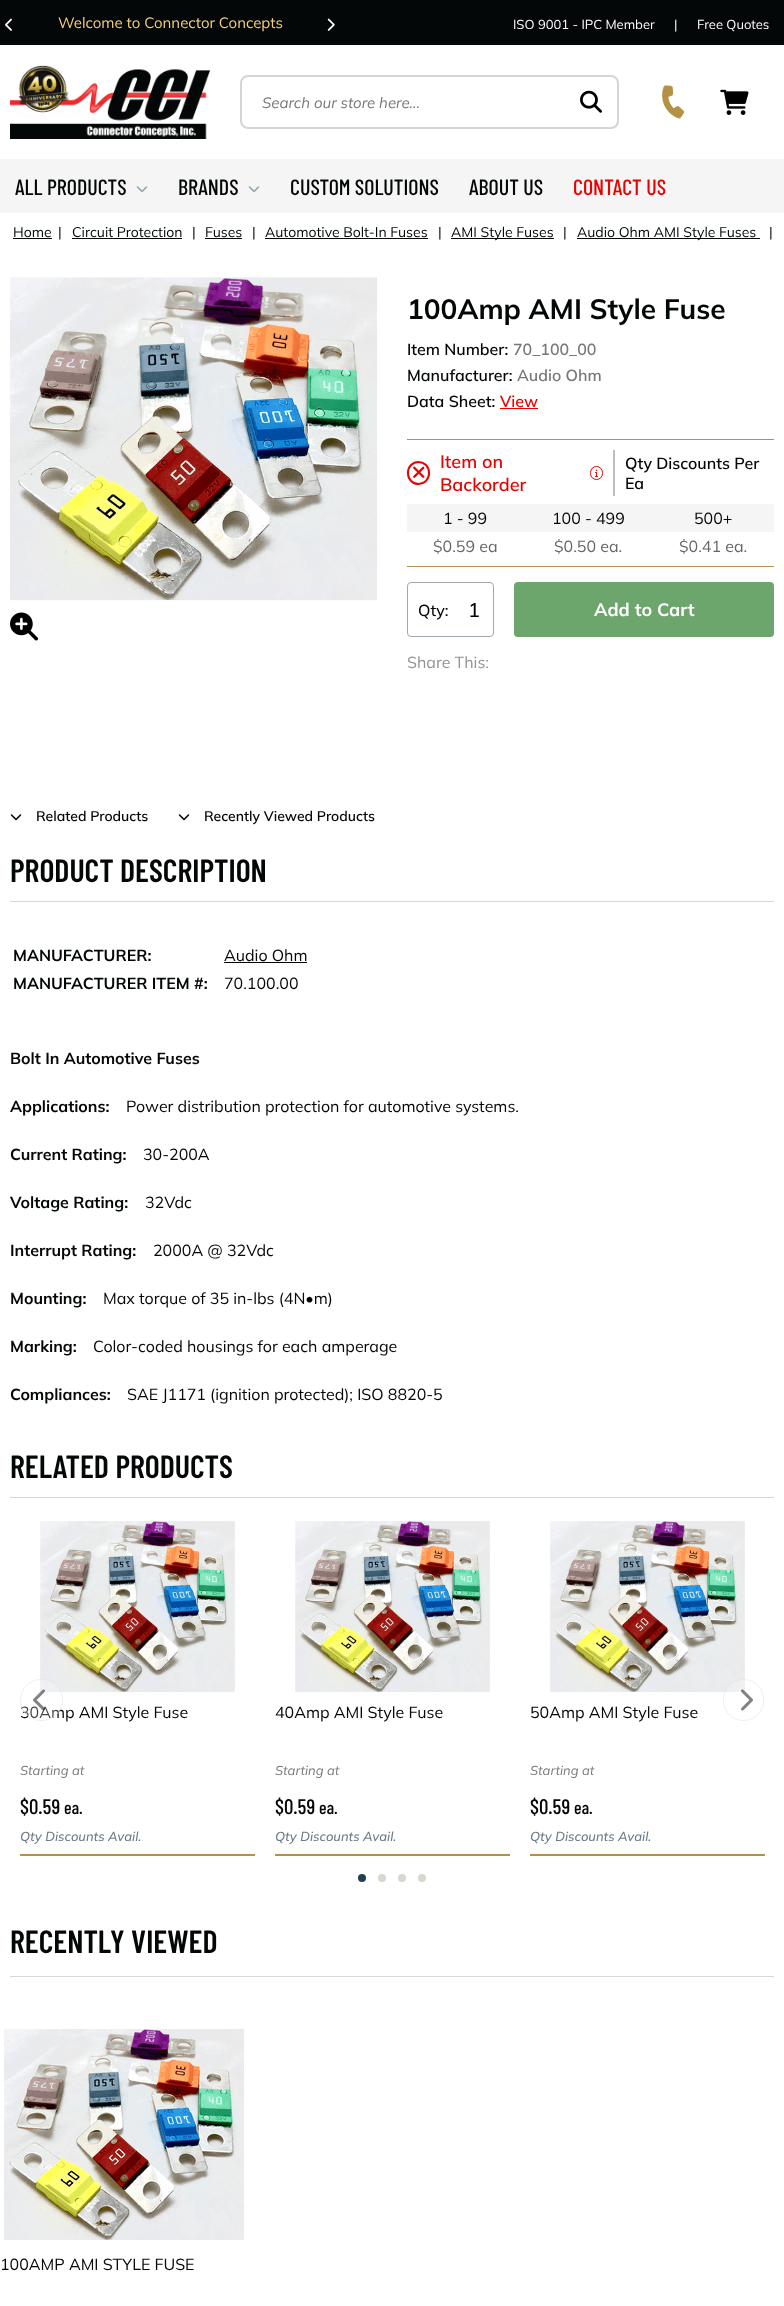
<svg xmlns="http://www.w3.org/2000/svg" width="784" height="2306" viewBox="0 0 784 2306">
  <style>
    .t1 { font: 15px Mulish; fill: #f8d07b; }
    .t2 { font: 13px Mulish; fill: #fff; }
    .t3 { font: italic 15px Mulish; fill: #787878; }
    .t4 { font: 500 22px Barlow Condensed; fill: #040707; }
    .t5 { font: 500 22px Barlow Condensed; fill: #e80200; }
    .t6 { font: 14px Mulish; fill: #040707; }
    .t7 { font: bold 28px Mulish; fill: #040707; }
    .t8 { font: 600 16px Mulish; fill: #040707; }
    .t9 { font: 600 16px Mulish; fill: #787878; }
    .t10 { font: 600 16px Mulish; fill: #e80200; }
    .t11 { font: 600 18px Mulish; fill: #e80200; }
    .t12 { font: 16px Mulish; fill: #040707; }
    .t13 { font: 16px Mulish; fill: #666; }
    .t14 { font: 500 16px Mulish; fill: #040707; }
    .t15 { font: 500 20px Mulish; fill: #000; }
    .t16 { font: bold 18px Mulish; fill: #fff; }
    .t17 { font: 16px Mulish; fill: #929292; }
    .t18 { font: 600 14px Mulish; fill: #040707; }
    .t19 { font: 600 32px Barlow Condensed; fill: #040707; }
    .t20 { font: bold 16px Mulish; fill: #040707; }
    .t21 { font: italic 13px Mulish; fill: #787878; }
    .t22 { font: 500 21px Barlow Condensed; fill: #040707; }
    .t23 { font: 500 18px Barlow Condensed; fill: #040707; }
    .t24 { font: italic 500 13px Mulish; fill: #6d7985; }
  </style>
  <rect width="100%" height="100%" fill="#fff"/>
  <rect x="0" y="0" width="784" height="45" fill="#040707"/>
  <image x="5" y="18" width="7" height="13" href="images/1.png"/>
  <text x="58" y="28" class="t1">Welcome to Connector Concepts</text>
  <image x="327" y="18" width="8" height="13" href="images/2.png"/>
  <text x="513" y="29" class="t2">ISO 9001 - IPC Member</text>
  <text x="674" y="29" class="t2">|</text>
  <text x="697" y="29" class="t2">Free Quotes</text>
  <image x="10" y="65" width="200" height="74" href="images/3.png"/>
  <rect x="241" y="76" width="377" height="52" rx="7" fill="none" stroke="#d5d5d5" stroke-width="2"/>
  <text x="262" y="108" class="t3">Search our store here...</text>
  <image x="580" y="90" width="22" height="23" href="images/4.png"/>
  <image x="662" y="85" width="22" height="34" href="images/5.png"/>
  <image x="720" y="89" width="29" height="26" href="images/6.png"/>
  <rect x="0" y="159" width="784" height="54" fill="#f5f5f5"/>
  <text x="15" y="195" class="t4">ALL PRODUCTS</text>
  <image x="136" y="186" width="12" height="7" href="images/7.png"/>
  <text x="178" y="195" class="t4">BRANDS</text>
  <image x="248" y="186" width="12" height="7" href="images/7.png"/>
  <text x="290" y="195" class="t4">CUSTOM SOLUTIONS</text>
  <text x="469" y="195" class="t4">ABOUT US</text>
  <text x="573" y="195" class="t5">CONTACT US</text>
  <text x="13" y="237" class="t6">Home</text>
  <rect x="13" y="238" width="39" height="1" fill="#040707"/>
  <text x="58" y="237" class="t6">|</text>
  <text x="72" y="237" class="t6">Circuit Protection</text>
  <rect x="72" y="238" width="110" height="1" fill="#040707"/>
  <text x="192" y="237" class="t6">|</text>
  <text x="205" y="237" class="t6">Fuses</text>
  <rect x="205" y="238" width="37" height="1" fill="#040707"/>
  <text x="252" y="237" class="t6">|</text>
  <text x="265" y="237" class="t6">Automotive Bolt-In Fuses</text>
  <rect x="265" y="238" width="163" height="1" fill="#040707"/>
  <text x="438" y="237" class="t6">|</text>
  <rect x="451" y="238" width="103" height="1" fill="#040707"/>
  <text x="451" y="237" class="t6">AMI Style Fuses</text>
  <text x="563" y="237" class="t6">|</text>
  <rect x="577" y="238" width="183" height="1" fill="#040707"/>
  <text x="577" y="237" class="t6">Audio Ohm AMI Style Fuses</text>
  <text x="769" y="237" class="t6">|</text>
  <image x="10" y="277" width="367" height="324" href="images/8.png"/>
  <image x="10" y="612" width="28" height="29" href="images/9.png"/>
  <text x="407" y="319" class="t7">100Amp AMI Style Fuse</text>
  <text x="407" y="355" class="t8">Item Number:</text>
  <text x="513" y="355" class="t9">70_100_00</text>
  <text x="407" y="381" class="t8">Manufacturer:</text>
  <text x="517" y="381" class="t9">Audio Ohm</text>
  <text x="407" y="407" class="t8">Data Sheet:</text>
  <text x="500" y="407" class="t10">View</text>
  <rect x="500" y="408" width="38" height="1" fill="#e80200"/>
  <rect x="407" y="439" width="367" height="1" fill="#b39246"/>
  <rect x="407" y="566" width="367" height="1" fill="#b39246"/>
  <rect x="613" y="450" width="2" height="46" fill="#bfbfbf"/>
  <rect x="408" y="462" width="21" height="22" rx="10.5" fill="none" stroke="#e80200" stroke-width="2"/>
  <image x="413" y="466" width="12" height="12" href="images/10.png"/>
  <text x="440" y="468" class="t11">Item on</text>
  <text x="440" y="491" class="t11">Backorder</text>
  <rect x="590.5" y="466.5" width="12" height="13" rx="6" fill="none" stroke="#e80200"/>
  <image x="595" y="469" width="3" height="8" href="images/11.png"/>
  <text x="625" y="469" class="t8">Qty Discounts Per</text>
  <text x="625" y="489" class="t8">Ea</text>
  <rect x="407" y="504" width="367" height="28" fill="#f5f5f5"/>
  <text x="443" y="524" class="t12">1 - 99</text>
  <text x="433" y="552" class="t13">$0.59 ea</text>
  <text x="552" y="524" class="t12">100 - 499</text>
  <text x="554" y="552" class="t13">$0.50 ea.</text>
  <text x="694" y="524" class="t12">500+</text>
  <text x="679" y="552" class="t13">$0.41 ea.</text>
  <rect x="407.5" y="582.5" width="86" height="54" rx="3.5" fill="none" stroke="#a0a7ad"/>
  <text x="418" y="616" class="t14">Qty:</text>
  <text x="468" y="617" class="t15">1</text>
  <rect x="514" y="582" width="260" height="55" rx="4" fill="#6ca66c"/>
  <text x="594" y="616" class="t16">Add to Cart</text>
  <text x="407" y="668" class="t17">Share This:</text>
  <image x="10" y="814" width="12" height="7" href="images/12.png"/>
  <text x="36" y="821" class="t18">Related Products</text>
  <image x="178" y="814" width="12" height="7" href="images/12.png"/>
  <text x="204" y="821" class="t18">Recently Viewed Products</text>
  <text x="10" y="882" class="t19">PRODUCT DESCRIPTION</text>
  <rect x="10" y="901" width="764" height="1" fill="#d7d7d7"/>
  <text x="13" y="961" class="t20">MANUFACTURER:</text>
  <text x="224" y="961" class="t12">Audio Ohm</text>
  <rect x="224" y="962" width="83" height="1" fill="#040707"/>
  <text x="13" y="989" class="t20">MANUFACTURER ITEM #:</text>
  <text x="224" y="989" class="t12">70.100.00</text>
  <text x="10" y="1064" class="t20">Bolt In Automotive Fuses</text>
  <text x="10" y="1112" class="t20">Applications:</text>
  <text x="126" y="1112" class="t12">Power distribution protection for automotive systems.</text>
  <text x="10" y="1160" class="t20">Current Rating:</text>
  <text x="143" y="1160" class="t12">30-200A</text>
  <text x="10" y="1208" class="t20">Voltage Rating:</text>
  <text x="145" y="1208" class="t12">32Vdc</text>
  <text x="10" y="1256" class="t20">Interrupt Rating:</text>
  <text x="153" y="1256" class="t12">2000A @ 32Vdc</text>
  <text x="10" y="1304" class="t20">Mounting:</text>
  <text x="103" y="1304" class="t12">Max torque of 35 in-lbs (4N•m)</text>
  <text x="10" y="1352" class="t20">Marking:</text>
  <text x="93" y="1352" class="t12">Color-coded housings for each amperage</text>
  <text x="10" y="1400" class="t20">Compliances:</text>
  <text x="127" y="1400" class="t12">SAE J1171 (ignition protected); ISO 8820-5</text>
  <text x="10" y="1478" class="t19">RELATED PRODUCTS</text>
  <rect x="10" y="1497" width="764" height="1" fill="#d7d7d7"/>
  <image x="40" y="1521" width="195" height="171" href="images/15.png"/>
  <text x="20" y="1718" class="t12">30Amp AMI Style Fuse</text>
  <rect x="20" y="1679" width="43" height="42" rx="21" fill="#ffffff40"/>
  <rect x="20.5" y="1679.5" width="42" height="41" rx="20.5" fill="none" stroke="#dddddd80"/>
  <image x="33" y="1689" width="12" height="22" href="images/13.png"/>
  <image x="550" y="1521" width="195" height="171" href="images/15.png"/>
  <rect x="723" y="1679" width="41" height="42" rx="20.5" fill="#ffffff40"/>
  <rect x="723.5" y="1679.5" width="40" height="41" rx="20" fill="none" stroke="#dddddd80"/>
  <image x="741" y="1689" width="12" height="22" href="images/14.png"/>
  <rect x="20" y="1854" width="235" height="2" fill="#b39246"/>
  <text x="20" y="1775" class="t21">Starting at</text>
  <text x="20" y="1814" class="t22">$0.59</text>
  <text x="64" y="1814" class="t23">ea.</text>
  <text x="20" y="1841" class="t24">Qty Discounts Avail.</text>
  <rect x="275" y="1854" width="235" height="2" fill="#b39246"/>
  <image x="295" y="1521" width="195" height="171" href="images/15.png"/>
  <text x="275" y="1718" class="t12">40Amp AMI Style Fuse</text>
  <text x="275" y="1775" class="t21">Starting at</text>
  <text x="275" y="1814" class="t22">$0.59</text>
  <text x="319" y="1814" class="t23">ea.</text>
  <text x="275" y="1841" class="t24">Qty Discounts Avail.</text>
  <rect x="530" y="1854" width="235" height="2" fill="#b39246"/>
  <text x="530" y="1718" class="t12">50Amp AMI Style Fuse</text>
  <text x="530" y="1775" class="t21">Starting at</text>
  <text x="530" y="1814" class="t22">$0.59</text>
  <text x="574" y="1814" class="t23">ea.</text>
  <text x="530" y="1841" class="t24">Qty Discounts Avail.</text>
  <circle cx="362" cy="1878" r="4" fill="#214051"/>
  <circle cx="382" cy="1878" r="4" fill="#d9d6cd"/>
  <circle cx="402" cy="1878" r="4" fill="#d9d6cd"/>
  <circle cx="422" cy="1878" r="4" fill="#d9d6cd"/>
  <text x="10" y="1953" class="t19">RECENTLY VIEWED</text>
  <rect x="10" y="1976" width="764" height="1" fill="#d7d7d7"/>
  <image x="4" y="2029" width="240" height="211" href="images/16.png"/>
  <text x="0" y="2270" class="t12">100AMP AMI STYLE FUSE</text>
</svg>
